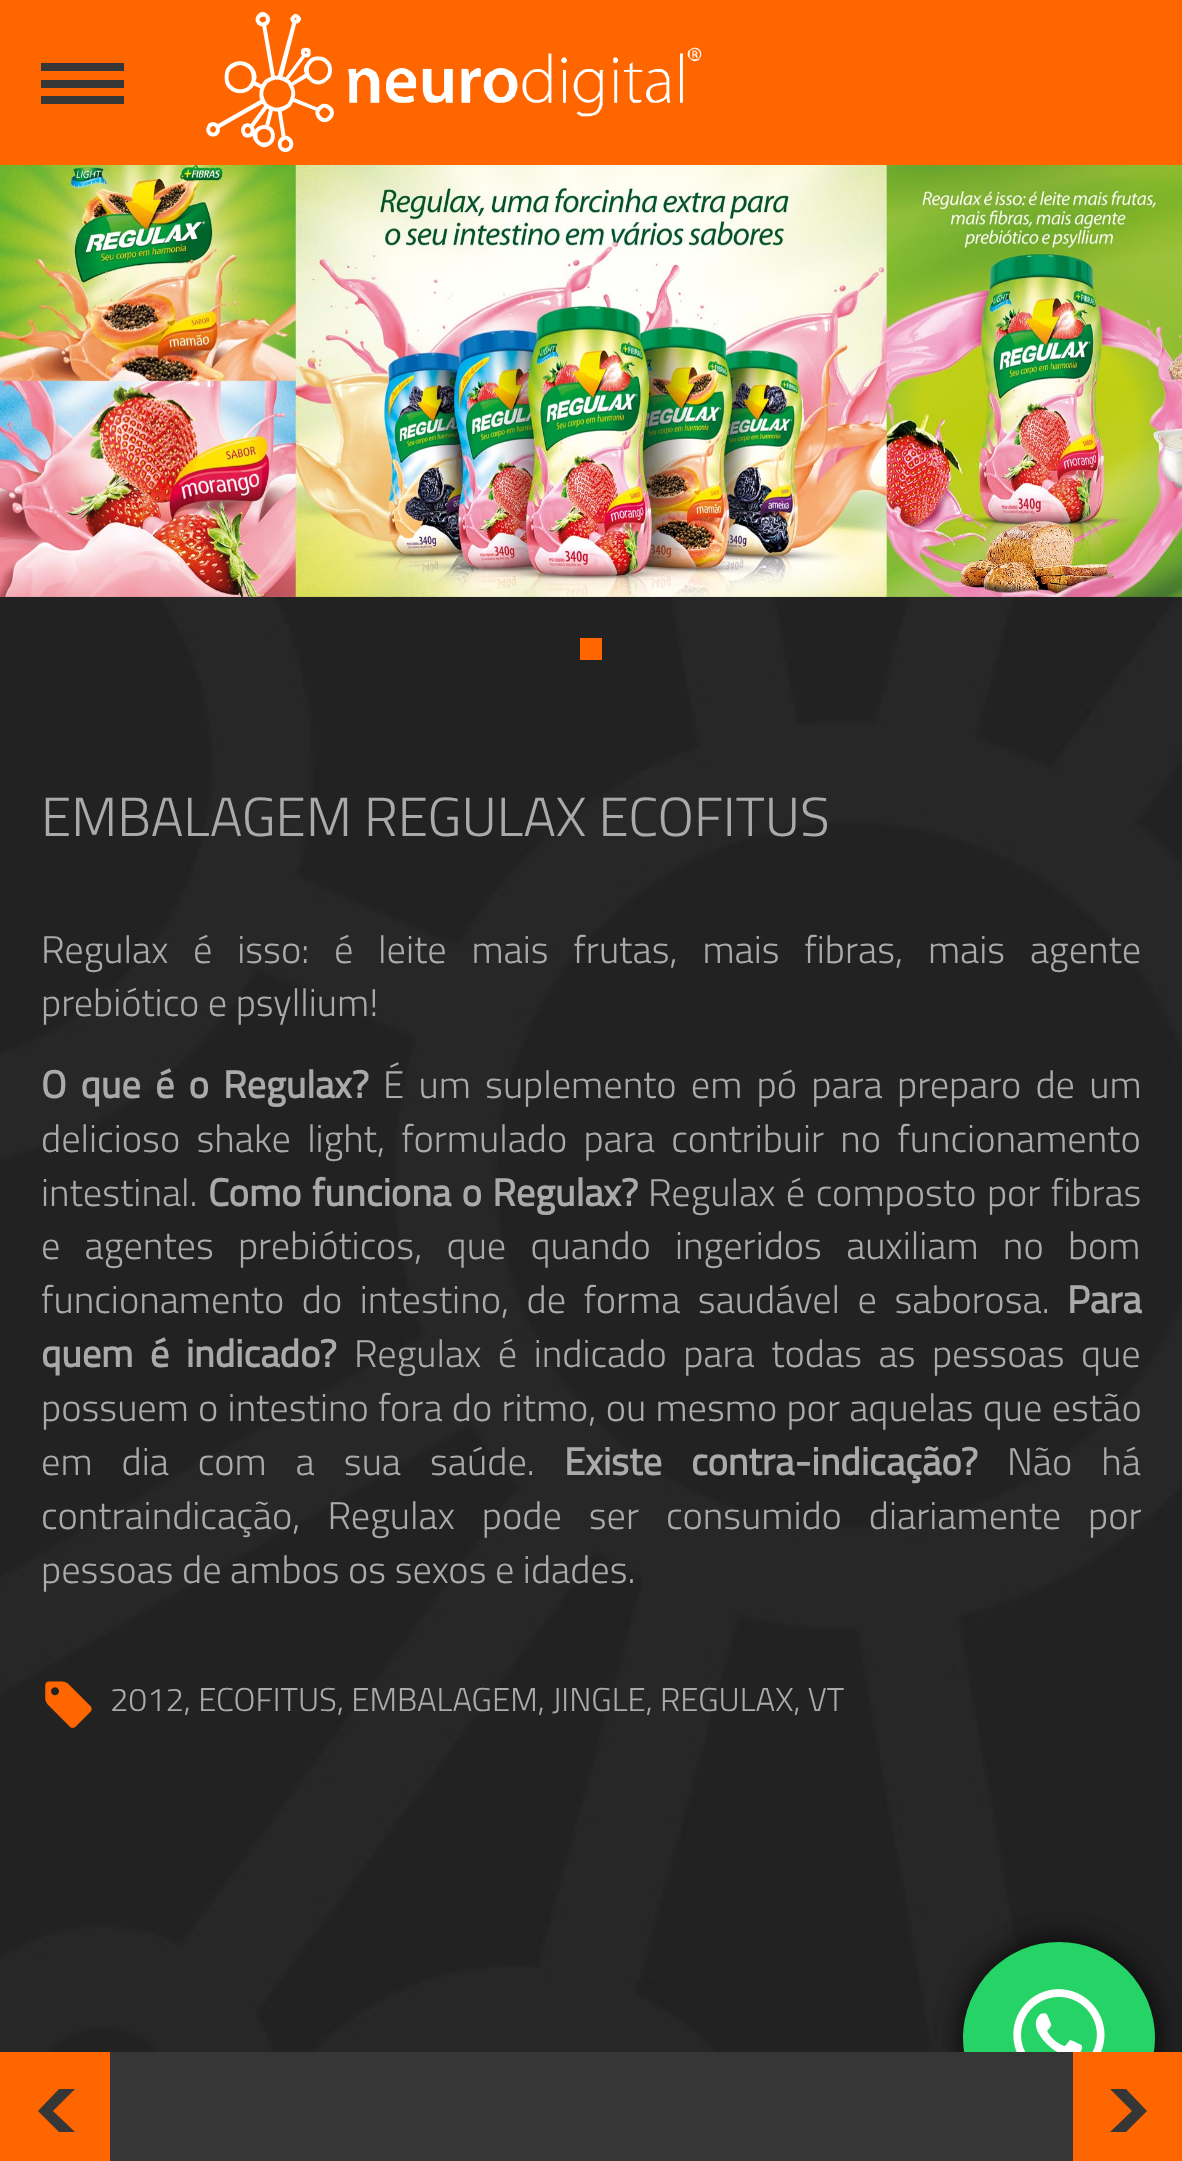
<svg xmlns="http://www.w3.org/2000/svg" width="1182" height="2161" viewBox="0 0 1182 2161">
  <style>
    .t1 { font: 300 55px Titillium Web; fill: #aaa; }
    .t2 { font: 300 38.5px Titillium Web; fill: #aaa; }
    .t3 { font: bold 38.5px Titillium Web; fill: #aaa; }
    .t4 { font: 300 33px Titillium Web; fill: #aaa; }
  </style>
  <rect width="100%" height="100%" fill="#fff"/>
  <image x="0" y="596" width="1182" height="1456" href="images/1.png"/>
  <rect x="0" y="0" width="1182" height="165" fill="#f60"/>
  <rect x="41" y="63" width="83" height="8" fill="#363636"/>
  <rect x="41" y="80" width="83" height="8" fill="#363636"/>
  <rect x="41" y="96" width="83" height="8" fill="#363636"/>
  <image x="206" y="11" width="496" height="142" href="images/2.png"/>
  <image x="0" y="165" width="1182" height="432" href="images/3.png"/>
  <rect x="580" y="638" width="22" height="22" fill="#f60"/>
  <text x="41" y="836" class="t1">EMBALAGEM REGULAX ECOFITUS</text>
  <text x="41" y="963" word-spacing="16.25" class="t2">Regulax é isso: é leite mais frutas, mais fibras, mais agente</text>
  <text x="41" y="1016" class="t2">prebiótico e psyllium!</text>
  <text x="41" y="1098" word-spacing="5.75" class="t3">O que é o Regulax?</text>
  <text x="383" y="1098" word-spacing="5.75" class="t2">É um suplemento em pó para preparo de um</text>
  <text x="41" y="1152" word-spacing="7.75" class="t2">delicioso shake light, formulado para contribuir no funcionamento</text>
  <text x="41" y="1206" class="t2">intestinal.</text>
  <text x="208" y="1206" word-spacing="2" class="t3">Como funciona o Regulax?</text>
  <text x="648" y="1206" word-spacing="2" class="t2">Regulax é composto por fibras</text>
  <text x="41" y="1259" word-spacing="15.75" class="t2">e agentes prebióticos, que quando ingeridos auxiliam no bom</text>
  <text x="41" y="1313" word-spacing="9" class="t2">funcionamento do intestino, de forma saudável e saborosa.</text>
  <text x="1067" y="1313" class="t3">Para</text>
  <text x="41" y="1367" word-spacing="8" class="t3">quem é indicado?</text>
  <text x="354" y="1367" word-spacing="8" class="t2">Regulax é indicado para todas as pessoas que</text>
  <text x="41" y="1421" word-spacing="0.75" class="t2">possuem o intestino fora do ritmo, ou mesmo por aquelas que estão</text>
  <text x="41" y="1475" word-spacing="20.5" class="t2">em dia com a sua saúde.</text>
  <text x="564" y="1475" word-spacing="20.5" class="t3">Existe contra-indicação?</text>
  <text x="1007" y="1475" word-spacing="20.5" class="t2">Não há</text>
  <text x="41" y="1529" word-spacing="18.5" class="t2">contraindicação, Regulax pode ser consumido diariamente por</text>
  <text x="41" y="1583" class="t2">pessoas de ambos os sexos e idades.</text>
  <image x="45" y="1681" width="47" height="47" href="images/4.png"/>
  <text x="110" y="1711" class="t4">2012, ECOFITUS, EMBALAGEM, JINGLE, REGULAX, VT</text>
  <rect x="963" y="1942" width="192" height="192" rx="96" fill="#00000080" filter="blur(14px)"/>
  <rect x="963" y="1942" width="192" height="192" rx="96" fill="#00000080" filter="blur(14px)"/>
  <circle cx="1059" cy="2038" r="96" fill="#25d366"/>
  <rect x="110" y="2052" width="963" height="109" fill="#363636"/>
  <rect x="0" y="2052" width="110" height="109" fill="#f60"/>
  <path d="M59 2132L38 2111L59 2089H75L53 2111L75 2132Z" fill="#363636"/>
  <rect x="1073" y="2052" width="109" height="109" fill="#f60"/>
  <path d="M1126 2089L1147 2111L1126 2132H1110L1132 2111L1110 2089Z" fill="#363636"/>
  <image x="1013" y="1989" width="92" height="63" href="images/5.png"/>
</svg>
